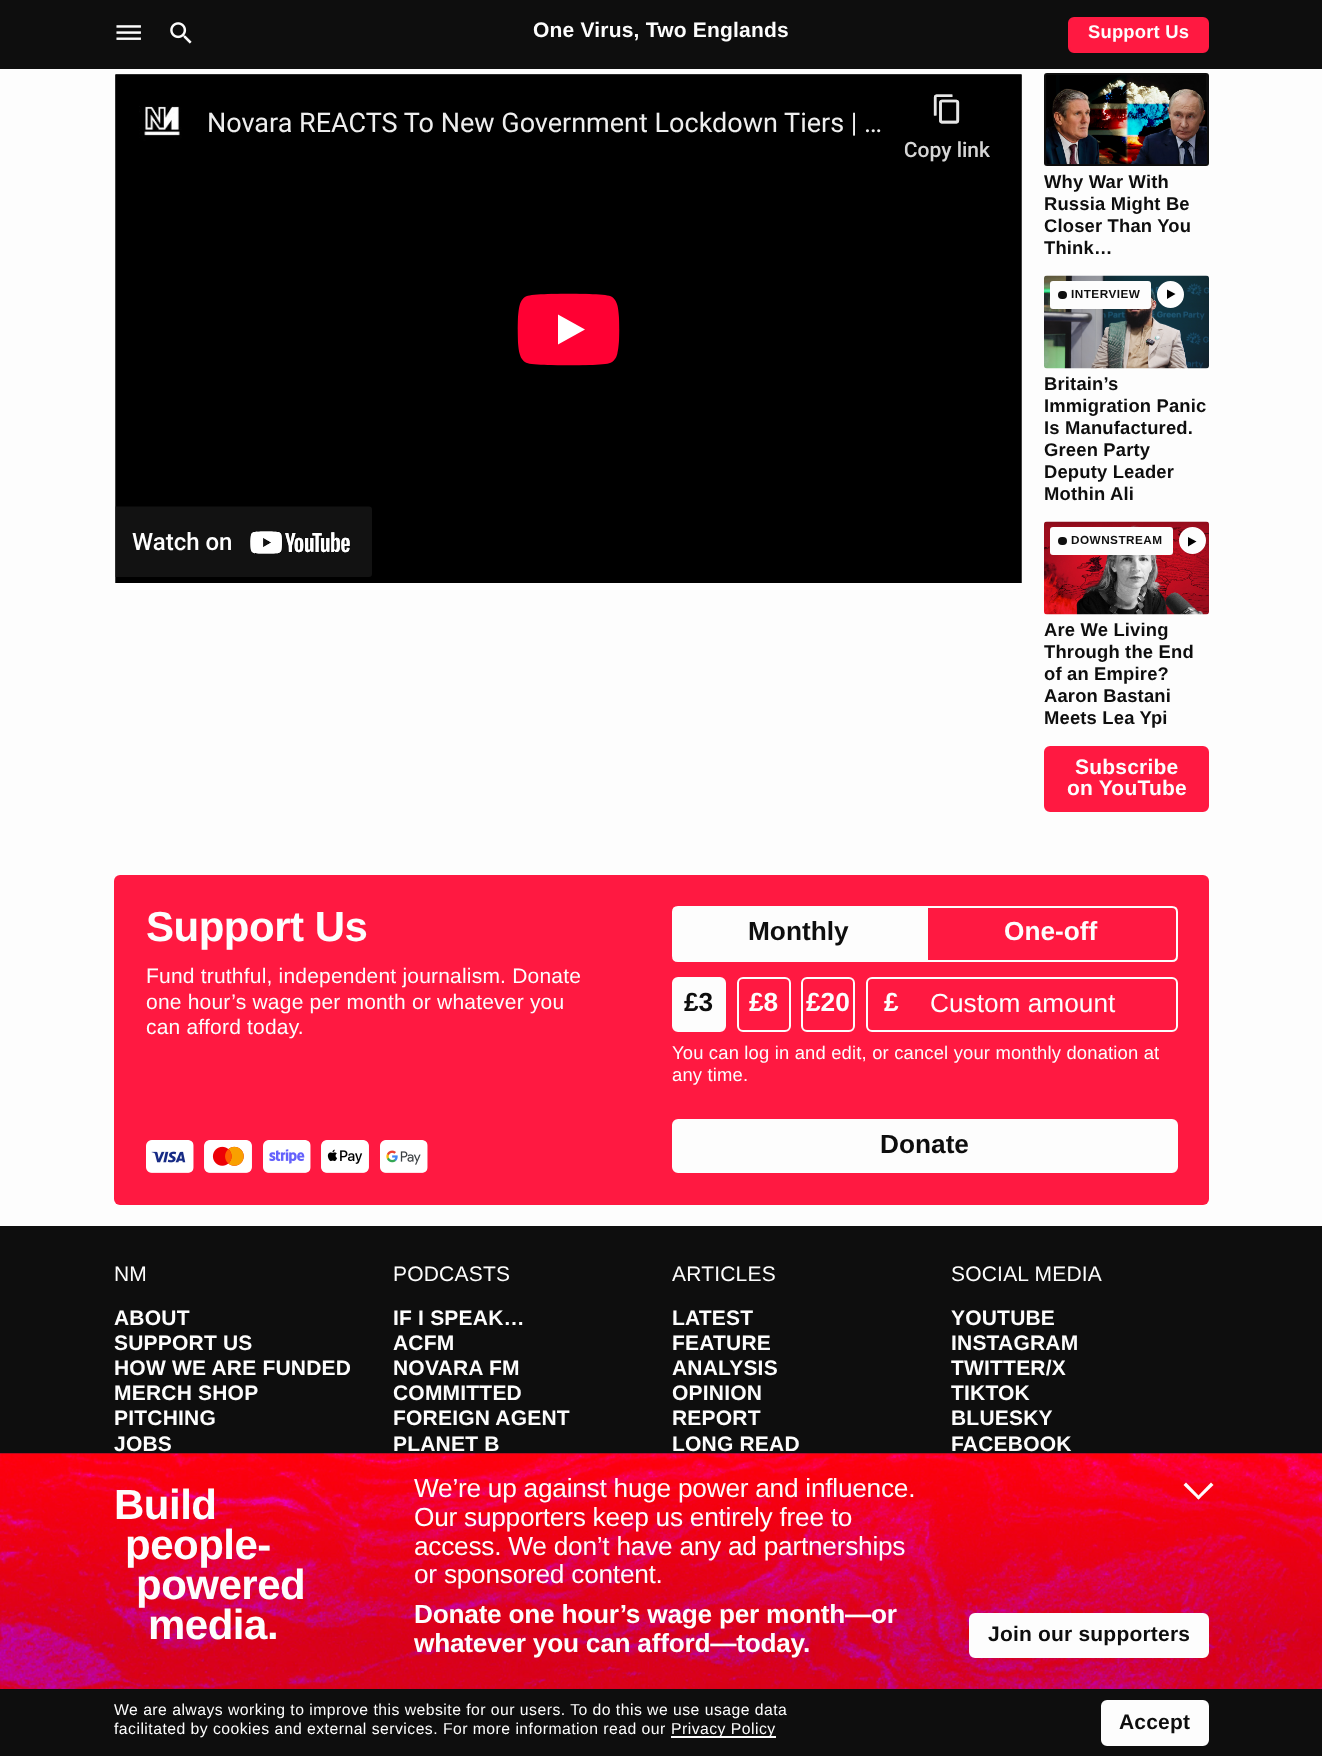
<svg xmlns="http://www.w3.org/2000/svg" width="1322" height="1756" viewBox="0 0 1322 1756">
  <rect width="100%" height="100%" fill="rgb(253,253,253)"/>
  <rect x="0" y="0" width="1322" height="69" fill="rgb(14,14,14)"/>
  <image x="116" y="25" width="25" height="15" href="pic1.png"/>
  <image x="170" y="22" width="22" height="22" href="pic2.png"/>
  <text x="533" y="37" font-family="Liberation Sans" font-size="21" font-weight="bold" letter-spacing="0.2" fill="rgb(253,253,253)">One Virus, Two Englands</text>
  <rect x="1069" y="18" width="139" height="34" rx="5" fill="rgb(255,25,65)" stroke="rgb(255,25,65)" stroke-width="2"/>
  <text x="1088" y="38" font-family="Liberation Sans" font-size="18.4" font-weight="bold" letter-spacing="0.2" fill="rgb(253,253,253)">Support Us</text>
  <image x="115" y="74" width="907" height="509" href="pic3.png"/>
  <image x="1044" y="73" width="165" height="93" href="pic4.png"/>
  <g font-family="Liberation Sans" font-size="18.4" font-weight="bold" letter-spacing="0.18" fill="rgb(14,14,14)">
    <text>
      <tspan x="1044" y="188">Why War With</tspan>
      <tspan x="1044" y="210">Russia Might Be</tspan>
      <tspan x="1044" y="232">Closer Than You</tspan>
      <tspan x="1044" y="254">Think…</tspan>
    </text>
  </g>
  <image x="1044" y="275" width="165" height="94" href="pic5.png"/>
  <rect x="1051" y="282" width="99" height="26" rx="2" fill="rgb(253,253,253)" stroke="rgb(253,253,253)" stroke-width="2"/>
  <rect x="1058" y="291" width="9" height="8" rx="4" fill="rgb(14,14,14)"/>
  <text x="1071" y="298" font-family="Liberation Sans" font-size="11.75" font-weight="bold" letter-spacing="0.47" fill="rgb(14,14,14)">INTERVIEW</text>
  <circle cx="1170.5" cy="294.5" r="12.5" fill="rgb(253,253,253)" stroke="rgb(253,253,253)" stroke-width="2"/>
  <path d="M1167 289.5V299L1175.5 294Z" fill="rgb(0,0,0)"/>
  <g font-family="Liberation Sans" font-size="18.4" font-weight="bold" letter-spacing="0.18" fill="rgb(14,14,14)">
    <text>
      <tspan x="1044" y="390">Britain’s</tspan>
      <tspan x="1044" y="412">Immigration Panic</tspan>
      <tspan x="1044" y="434">Is Manufactured.</tspan>
      <tspan x="1044" y="456">Green Party</tspan>
      <tspan x="1044" y="478">Deputy Leader</tspan>
      <tspan x="1044" y="500">Mothin Ali</tspan>
    </text>
  </g>
  <image x="1044" y="521" width="165" height="94" href="pic6.png"/>
  <rect x="1051" y="528" width="121" height="26" rx="2" fill="rgb(253,253,253)" stroke="rgb(253,253,253)" stroke-width="2"/>
  <rect x="1058" y="537" width="9" height="8" rx="4" fill="rgb(14,14,14)"/>
  <text x="1071" y="544" font-family="Liberation Sans" font-size="11.75" font-weight="bold" letter-spacing="0.47" fill="rgb(14,14,14)">DOWNSTREAM</text>
  <circle cx="1192.5" cy="540.5" r="12.5" fill="rgb(253,253,253)" stroke="rgb(253,253,253)" stroke-width="2"/>
  <path d="M1188 537V546.5L1196.5 541.5Z" fill="rgb(0,0,0)"/>
  <g font-family="Liberation Sans" font-size="18.4" font-weight="bold" letter-spacing="0.18" fill="rgb(14,14,14)">
    <text>
      <tspan x="1044" y="636">Are We Living</tspan>
      <tspan x="1044" y="658">Through the End</tspan>
      <tspan x="1044" y="680">of an Empire?</tspan>
      <tspan x="1044" y="702">Aaron Bastani</tspan>
      <tspan x="1044" y="724">Meets Lea Ypi</tspan>
    </text>
  </g>
  <rect x="1045" y="747" width="163" height="64" rx="5" fill="rgb(255,25,65)" stroke="rgb(255,25,65)" stroke-width="2"/>
  <g font-family="Liberation Sans" font-size="21" font-weight="bold" letter-spacing="0.2" fill="rgb(253,253,253)">
    <text x="1075" y="774">Subscribe</text>
    <text x="1067" y="795">on YouTube</text>
  </g>
  <rect x="114" y="875" width="1095" height="330" rx="6" fill="rgb(255,25,65)"/>
  <text x="146" y="941" font-family="Liberation Sans" font-size="42" font-weight="bold" letter-spacing="-0.5" fill="rgb(253,253,253)">Support Us</text>
  <g font-family="Liberation Sans" font-size="21" letter-spacing="0.2" fill="rgb(253,253,253)">
    <text>
      <tspan x="146" y="983">Fund truthful, independent journalism. Donate</tspan>
      <tspan x="146" y="1009">one hour’s wage per month or whatever you</tspan>
      <tspan x="146" y="1034">can afford today.</tspan>
    </text>
  </g>
  <image x="146" y="1140" width="48" height="33" href="pic7.png"/>
  <image x="204" y="1140" width="48" height="33" href="pic8.png"/>
  <image x="263" y="1140" width="48" height="33" href="pic9.png"/>
  <image x="321" y="1140" width="48" height="33" href="pic10.png"/>
  <image x="380" y="1140" width="48" height="33" href="pic11.png"/>
  <path d="M678 907H925V961H678C675 961 673 959 673 956V912C673 909 675 907 678 907Z" fill="rgb(253,253,253)" stroke="rgb(253,253,253)" stroke-width="2"/>
  <text x="748" y="940" font-family="Liberation Sans" font-size="26.25" font-weight="bold" fill="rgb(14,14,14)">Monthly</text>
  <path d="M927 907H1172C1175 907 1177 909 1177 912V956C1177 959 1175 961 1172 961H927Z" fill="none" stroke="rgb(253,253,253)" stroke-width="2"/>
  <text x="1004" y="940" font-family="Liberation Sans" font-size="26.25" font-weight="bold" fill="rgb(253,253,253)">One-off</text>
  <rect x="673" y="978" width="52" height="53" rx="5" fill="rgb(253,253,253)" stroke="rgb(253,253,253)" stroke-width="2"/>
  <text x="684" y="1011" font-family="Liberation Sans" font-size="26.25" font-weight="bold" fill="rgb(14,14,14)">£3</text>
  <rect x="738" y="978" width="52" height="53" rx="5" fill="none" stroke="rgb(253,253,253)" stroke-width="2"/>
  <text x="749" y="1011" font-family="Liberation Sans" font-size="26.25" font-weight="bold" fill="rgb(253,253,253)">£8</text>
  <rect x="802" y="978" width="52" height="53" rx="5" fill="none" stroke="rgb(253,253,253)" stroke-width="2"/>
  <text x="806" y="1011" font-family="Liberation Sans" font-size="26.25" font-weight="bold" fill="rgb(253,253,253)">£20</text>
  <rect x="867" y="978" width="310" height="53" rx="5" fill="none" stroke="rgb(253,253,253)" stroke-width="2"/>
  <text x="884" y="1011" font-family="Liberation Sans" font-size="26.25" font-weight="bold" letter-spacing="-0.25" fill="rgb(253,253,253)">£</text>
  <text x="930" y="1012" font-family="Liberation Sans" font-size="26.25" fill="rgb(253,253,253)">Custom amount</text>
  <g font-family="Liberation Sans" font-size="18.4" letter-spacing="0.18" fill="rgb(253,253,253)">
    <text>
      <tspan x="672" y="1059">You can log in and edit, or cancel your monthly donation at</tspan>
      <tspan x="672" y="1081">any time.</tspan>
    </text>
  </g>
  <rect x="673" y="1120" width="504" height="52" rx="5" fill="rgb(253,253,253)" stroke="rgb(253,253,253)" stroke-width="2"/>
  <text x="880" y="1153" font-family="Liberation Sans" font-size="26.25" font-weight="bold" fill="rgb(14,14,14)">Donate</text>
  <rect x="0" y="1226" width="1322" height="228" fill="rgb(14,14,14)"/>
  <text x="114" y="1281" font-family="Liberation Sans" font-size="21" letter-spacing="0.2" fill="rgb(253,253,253)">NM</text>
  <g font-family="Liberation Sans" font-size="21" font-weight="bold" letter-spacing="0.2" fill="rgb(253,253,253)">
    <text>
      <tspan x="114" y="1325">ABOUT</tspan>
      <tspan x="114" y="1350">SUPPORT US</tspan>
      <tspan x="114" y="1375">HOW WE ARE FUNDED</tspan>
      <tspan x="114" y="1400">MERCH SHOP</tspan>
      <tspan x="114" y="1425">PITCHING</tspan>
      <tspan x="114" y="1451">JOBS</tspan>
    </text>
  </g>
  <text x="393" y="1281" font-family="Liberation Sans" font-size="21" letter-spacing="0.2" fill="rgb(253,253,253)">PODCASTS</text>
  <g font-family="Liberation Sans" font-size="21" font-weight="bold" letter-spacing="0.2" fill="rgb(253,253,253)">
    <text>
      <tspan x="393" y="1325">IF I SPEAK…</tspan>
      <tspan x="393" y="1350">ACFM</tspan>
      <tspan x="393" y="1375">NOVARA FM</tspan>
      <tspan x="393" y="1400">COMMITTED</tspan>
      <tspan x="393" y="1425">FOREIGN AGENT</tspan>
      <tspan x="393" y="1451">PLANET B</tspan>
    </text>
  </g>
  <text x="672" y="1281" font-family="Liberation Sans" font-size="21" letter-spacing="0.2" fill="rgb(253,253,253)">ARTICLES</text>
  <g font-family="Liberation Sans" font-size="21" font-weight="bold" letter-spacing="0.2" fill="rgb(253,253,253)">
    <text>
      <tspan x="672" y="1325">LATEST</tspan>
      <tspan x="672" y="1350">FEATURE</tspan>
      <tspan x="672" y="1375">ANALYSIS</tspan>
      <tspan x="672" y="1400">OPINION</tspan>
      <tspan x="672" y="1425">REPORT</tspan>
      <tspan x="672" y="1451">LONG READ</tspan>
    </text>
  </g>
  <text x="951" y="1281" font-family="Liberation Sans" font-size="21" letter-spacing="0.2" fill="rgb(253,253,253)">SOCIAL MEDIA</text>
  <g font-family="Liberation Sans" font-size="21" font-weight="bold" letter-spacing="0.2" fill="rgb(253,253,253)">
    <text>
      <tspan x="951" y="1325">YOUTUBE</tspan>
      <tspan x="951" y="1350">INSTAGRAM</tspan>
      <tspan x="951" y="1375">TWITTER/X</tspan>
      <tspan x="951" y="1400">TIKTOK</tspan>
      <tspan x="951" y="1425">BLUESKY</tspan>
      <tspan x="951" y="1451">FACEBOOK</tspan>
    </text>
  </g>
  <image x="0" y="1453" width="1322" height="236" href="pic12.png"/>
  <g font-family="Liberation Sans" font-size="42" font-weight="bold" letter-spacing="-0.5" fill="rgb(253,253,253)">
    <text x="114" y="1519">Build</text>
    <text x="125" y="1559">people-</text>
    <text x="136" y="1599">powered</text>
    <text x="148" y="1639">media.</text>
  </g>
  <g font-family="Liberation Sans" font-size="26.25" letter-spacing="-0.25" fill="rgb(253,253,253)">
    <text>
      <tspan x="414" y="1497">We’re up against huge power and influence.</tspan>
      <tspan x="414" y="1526">Our supporters keep us entirely free to</tspan>
      <tspan x="414" y="1555">access. We don’t have any ad partnerships</tspan>
      <tspan x="414" y="1583">or sponsored content.</tspan>
    </text>
  </g>
  <g font-family="Liberation Sans" font-size="26.25" font-weight="bold" letter-spacing="-0.25" fill="rgb(253,253,253)">
    <text>
      <tspan x="414" y="1623">Donate one hour’s wage per month—or</tspan>
      <tspan x="414" y="1652">whatever you can afford—today.</tspan>
    </text>
  </g>
  <path d="M1211 1482.5L1213.5 1485L1198.5 1499.5L1196.5 1497.5Z" fill="rgb(253,253,253)"/>
  <path d="M1186 1482.5L1200.5 1497.5L1198.5 1499.5L1183.5 1485Z" fill="rgb(253,253,253)"/>
  <rect x="970" y="1614" width="238" height="43" rx="5" fill="rgb(253,253,253)" stroke="rgb(253,253,253)" stroke-width="2"/>
  <text x="988" y="1641" font-family="Liberation Sans" font-size="21" font-weight="bold" letter-spacing="0.2" fill="rgb(14,14,14)">Join our supporters</text>
  <rect x="0" y="1689" width="1322" height="67" fill="rgb(14,14,14)"/>
  <g font-family="Liberation Sans" font-size="15.75" letter-spacing="0.47" fill="rgb(253,253,253)">
    <text>
      <tspan x="114" y="1715">We are always working to improve this website for our users. To do this we use usage data</tspan>
      <tspan x="114" y="1734">facilitated by cookies and external services. For more information read our</tspan>
    </text>
  </g>
  <rect x="671" y="1736" width="105" height="2" fill="rgb(253,253,253)"/>
  <text x="671" y="1734" font-family="Liberation Sans" font-size="15.75" letter-spacing="0.47" fill="rgb(253,253,253)">Privacy Policy</text>
  <rect x="1102" y="1701" width="106" height="44" rx="5" fill="rgb(253,253,253)" stroke="rgb(253,253,253)" stroke-width="2"/>
  <text x="1119" y="1729" font-family="Liberation Sans" font-size="21" font-weight="bold" letter-spacing="0.2" fill="rgb(14,14,14)">Accept</text>
</svg>
